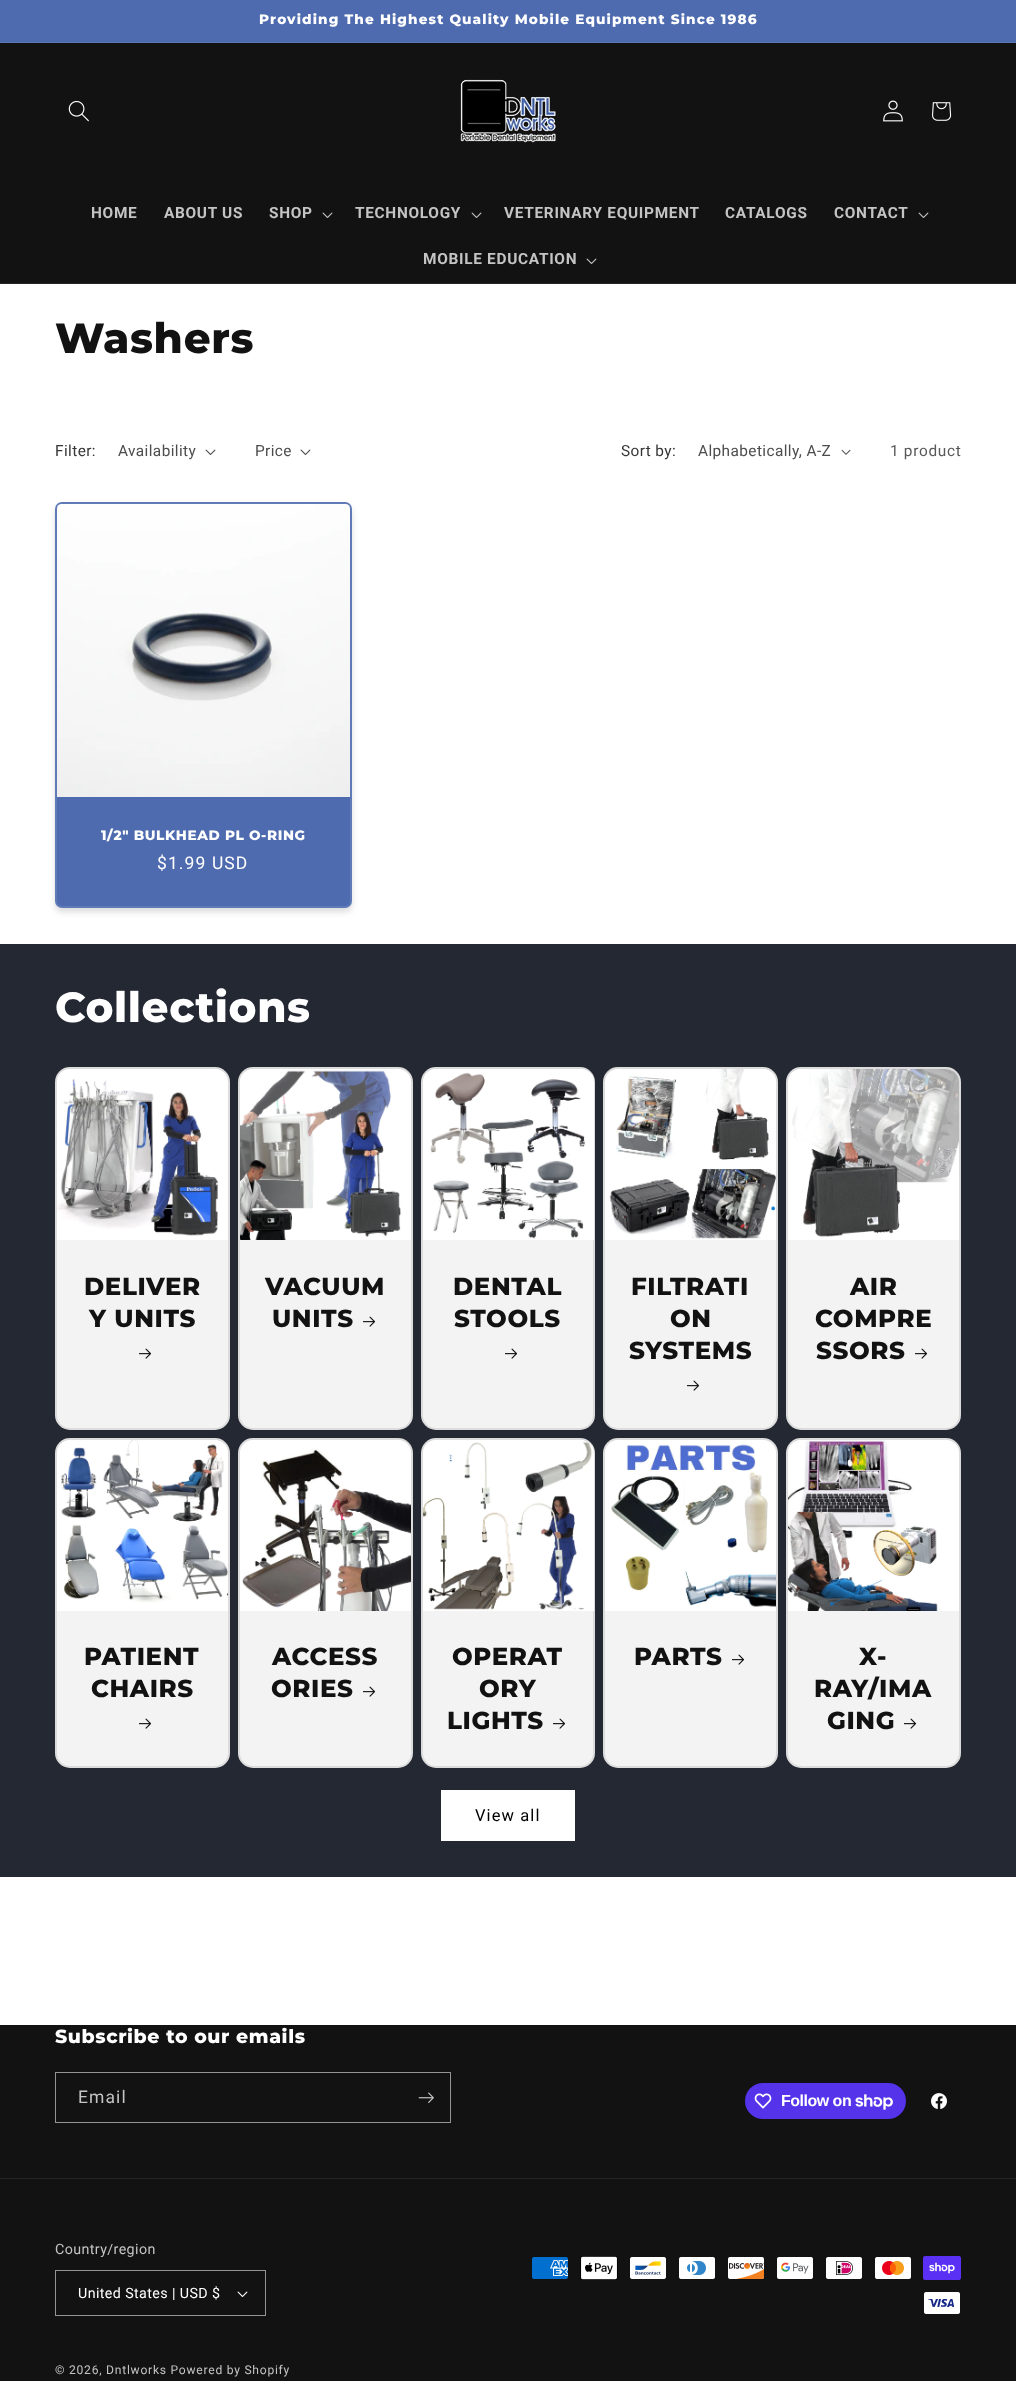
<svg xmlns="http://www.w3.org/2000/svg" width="1016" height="2381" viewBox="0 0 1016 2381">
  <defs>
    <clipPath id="clip1"><path d="M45 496H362V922H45ZM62 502H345C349 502 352 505 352 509V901C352 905 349 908 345 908H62C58 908 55 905 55 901V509C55 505 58 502 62 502Z" clip-rule="evenodd"/></clipPath>
  </defs>
  <rect width="100%" height="100%" fill="rgb(255,255,255)"/>
  <rect x="0" y="0" width="1016" height="42" fill="rgb(78,107,175)"/>
  <rect x="0" y="42" width="1016" height="1" fill="rgb(92,119,181)"/>
  <text x="259" y="24" font-family="Montserrat" font-size="13.65" font-weight="800" letter-spacing="1.1" fill="rgb(255,255,255)">Providing The Highest Quality Mobile Equipment Since 1986</text>
  <rect x="0" y="43" width="1016" height="240" fill="rgb(18,18,18)"/>
  <rect x="0" y="283" width="1016" height="1" fill="rgb(37,37,37)"/>
  <image x="68" y="100" width="21" height="22" href="pic1.png"/>
  <image x="460" y="79" width="96" height="64" href="pic2.png"/>
  <image x="883" y="100" width="20" height="22" href="pic3.png"/>
  <image x="932" y="102" width="20" height="19" href="pic4.png"/>
  <g font-family="Roboto" font-size="15.4" font-weight="bold" letter-spacing="0.7" fill="rgb(196,196,196)">
    <text x="91" y="218">HOME</text>
    <text x="164" y="218">ABOUT US</text>
    <text x="269" y="218">SHOP</text>
  </g>
  <image x="322" y="212" width="11" height="6" href="pic5.png"/>
  <text x="355" y="218" font-family="Roboto" font-size="15.4" font-weight="bold" letter-spacing="0.7" fill="rgb(196,196,196)">TECHNOLOGY</text>
  <image x="471" y="212" width="11" height="6" href="pic5.png"/>
  <g font-family="Roboto" font-size="15.4" font-weight="bold" letter-spacing="0.7" fill="rgb(196,196,196)">
    <text x="504" y="218">VETERINARY EQUIPMENT</text>
    <text x="725" y="218">CATALOGS</text>
    <text x="834" y="218">CONTACT</text>
  </g>
  <image x="918" y="212" width="11" height="6" href="pic5.png"/>
  <text x="423" y="264" font-family="Roboto" font-size="15.4" font-weight="bold" letter-spacing="0.7" fill="rgb(196,196,196)">MOBILE EDUCATION</text>
  <image x="586" y="258" width="11" height="6" href="pic5.png"/>
  <text x="55" y="353" font-family="Montserrat" font-size="42" font-weight="800" letter-spacing="0.6" fill="rgb(18,18,18)">Washers</text>
  <text x="55" y="456" font-family="Roboto" font-size="15.4" letter-spacing="0.4" fill="rgb(54,54,54)">Filter:</text>
  <text x="118" y="456" font-family="Roboto" font-size="15.4" letter-spacing="0.4" fill="rgb(77,77,77)">Availability</text>
  <image x="205" y="449" width="11" height="6" href="pic6.png"/>
  <text x="255" y="456" font-family="Roboto" font-size="15.4" letter-spacing="0.4" fill="rgb(77,77,77)">Price</text>
  <image x="300" y="449" width="11" height="6" href="pic6.png"/>
  <text x="621" y="456" font-family="Roboto" font-size="15.4" letter-spacing="0.4" fill="rgb(54,54,54)">Sort by:</text>
  <text x="698" y="456" font-family="Roboto" font-size="15.4" letter-spacing="0.4" fill="rgb(77,77,77)">Alphabetically, A-Z</text>
  <image x="841" y="449" width="10" height="6" href="pic7.png"/>
  <text x="890" y="456" font-family="Roboto" font-size="15.4" letter-spacing="0.7" fill="rgb(89,89,89)">1 product</text>
  <rect x="55" y="502" width="297" height="406" rx="7" fill="rgb(78,107,175)"/>
  <rect x="56" y="503" width="295" height="404" rx="6" fill="none" stroke="rgba(255,255,255,0.1)" stroke-width="2"/>
  <g clip-path="url(#clip1)">
    <rect x="55" y="506" width="297" height="406" rx="7" fill="rgba(18,18,18,0.15)" filter="blur(3px)"/>
  </g>
  <image x="57" y="504" width="293" height="293" href="pic8.png"/>
  <text x="101" y="840" font-family="Montserrat" font-size="13.65" font-weight="800" letter-spacing="0.6" fill="rgb(255,255,255)">1/2" BULKHEAD PL O-RING</text>
  <text x="157" y="869" font-family="Roboto" font-size="17.5" letter-spacing="1.1" fill="rgb(255,255,255)">$1.99 USD</text>
  <rect x="0" y="944" width="1016" height="933" fill="rgb(36,40,51)"/>
  <text x="55" y="1022" font-family="Montserrat" font-size="42" font-weight="800" letter-spacing="0.6" fill="rgb(255,255,255)">Collections</text>
  <rect x="55" y="1067" width="175" height="363" rx="15" fill="rgb(243,243,243)"/>
  <rect x="56" y="1068" width="173" height="361" rx="14" fill="none" stroke="rgba(18,18,18,0.1)" stroke-width="2"/>
  <image x="57" y="1069" width="171" height="171" href="pic9.png"/>
  <g font-family="Montserrat" font-size="24.5" font-weight="800" letter-spacing="0.6" fill="rgb(18,18,18)">
    <text x="84" y="1295">DELIVER</text>
    <text x="89" y="1327">Y UNITS</text>
  </g>
  <image x="139" y="1348" width="13" height="11" href="pic10.png"/>
  <rect x="238" y="1067" width="175" height="363" rx="15" fill="rgb(243,243,243)"/>
  <rect x="239" y="1068" width="173" height="361" rx="14" fill="none" stroke="rgba(18,18,18,0.1)" stroke-width="2"/>
  <image x="240" y="1069" width="171" height="171" href="pic11.png"/>
  <g font-family="Montserrat" font-size="24.5" font-weight="800" letter-spacing="0.6" fill="rgb(18,18,18)">
    <text x="265" y="1295">VACUUM</text>
    <text x="272" y="1327">UNITS</text>
  </g>
  <image x="363" y="1316" width="13" height="11" href="pic10.png"/>
  <rect x="421" y="1067" width="174" height="363" rx="15" fill="rgb(243,243,243)"/>
  <rect x="422" y="1068" width="172" height="361" rx="14" fill="none" stroke="rgba(18,18,18,0.1)" stroke-width="2"/>
  <image x="423" y="1069" width="171" height="171" href="pic12.png"/>
  <g font-family="Montserrat" font-size="24.5" font-weight="800" letter-spacing="0.6" fill="rgb(18,18,18)">
    <text x="453" y="1295">DENTAL</text>
    <text x="454" y="1327">STOOLS</text>
  </g>
  <image x="505" y="1348" width="13" height="11" href="pic10.png"/>
  <rect x="603" y="1067" width="175" height="363" rx="15" fill="rgb(243,243,243)"/>
  <rect x="604" y="1068" width="173" height="361" rx="14" fill="none" stroke="rgba(18,18,18,0.1)" stroke-width="2"/>
  <image x="605" y="1069" width="171" height="171" href="pic13.png"/>
  <g font-family="Montserrat" font-size="24.5" font-weight="800" letter-spacing="0.6" fill="rgb(18,18,18)">
    <text x="631" y="1295">FILTRATI</text>
    <text x="670" y="1327">ON</text>
    <text x="629" y="1359">SYSTEMS</text>
  </g>
  <image x="687" y="1380" width="13" height="11" href="pic10.png"/>
  <rect x="786" y="1067" width="175" height="363" rx="15" fill="rgb(243,243,243)"/>
  <rect x="787" y="1068" width="173" height="361" rx="14" fill="none" stroke="rgba(18,18,18,0.1)" stroke-width="2"/>
  <image x="788" y="1069" width="171" height="171" href="pic14.png"/>
  <g font-family="Montserrat" font-size="24.5" font-weight="800" letter-spacing="0.6" fill="rgb(18,18,18)">
    <text x="850" y="1295">AIR</text>
    <text x="815" y="1327">COMPRE</text>
    <text x="816" y="1359">SSORS</text>
  </g>
  <image x="915" y="1348" width="13" height="11" href="pic10.png"/>
  <rect x="55" y="1438" width="175" height="330" rx="15" fill="rgb(243,243,243)"/>
  <rect x="56" y="1439" width="173" height="328" rx="14" fill="none" stroke="rgba(18,18,18,0.1)" stroke-width="2"/>
  <image x="57" y="1440" width="171" height="171" href="pic15.png"/>
  <g font-family="Montserrat" font-size="24.5" font-weight="800" letter-spacing="0.6" fill="rgb(18,18,18)">
    <text x="84" y="1665">PATIENT</text>
    <text x="91" y="1697">CHAIRS</text>
  </g>
  <image x="139" y="1718" width="13" height="11" href="pic10.png"/>
  <rect x="238" y="1438" width="175" height="330" rx="15" fill="rgb(243,243,243)"/>
  <rect x="239" y="1439" width="173" height="328" rx="14" fill="none" stroke="rgba(18,18,18,0.1)" stroke-width="2"/>
  <image x="240" y="1440" width="171" height="171" href="pic16.png"/>
  <g font-family="Montserrat" font-size="24.5" font-weight="800" letter-spacing="0.6" fill="rgb(18,18,18)">
    <text x="272" y="1665">ACCESS</text>
    <text x="271" y="1697">ORIES</text>
  </g>
  <image x="363" y="1686" width="13" height="11" href="pic10.png"/>
  <rect x="421" y="1438" width="174" height="330" rx="15" fill="rgb(243,243,243)"/>
  <rect x="422" y="1439" width="172" height="328" rx="14" fill="none" stroke="rgba(18,18,18,0.1)" stroke-width="2"/>
  <image x="423" y="1440" width="171" height="171" href="pic17.png"/>
  <g font-family="Montserrat" font-size="24.5" font-weight="800" letter-spacing="0.6" fill="rgb(18,18,18)">
    <text x="452" y="1665">OPERAT</text>
    <text x="479" y="1697">ORY</text>
    <text x="447" y="1729">LIGHTS</text>
  </g>
  <image x="553" y="1718" width="13" height="11" href="pic10.png"/>
  <rect x="603" y="1438" width="175" height="330" rx="15" fill="rgb(243,243,243)"/>
  <rect x="604" y="1439" width="173" height="328" rx="14" fill="none" stroke="rgba(18,18,18,0.1)" stroke-width="2"/>
  <image x="605" y="1440" width="171" height="171" href="pic18.png"/>
  <text x="634" y="1665" font-family="Montserrat" font-size="24.5" font-weight="800" letter-spacing="0.6" fill="rgb(18,18,18)">PARTS</text>
  <image x="732" y="1654" width="13" height="11" href="pic10.png"/>
  <rect x="786" y="1438" width="175" height="330" rx="15" fill="rgb(243,243,243)"/>
  <rect x="787" y="1439" width="173" height="328" rx="14" fill="none" stroke="rgba(18,18,18,0.1)" stroke-width="2"/>
  <image x="788" y="1440" width="171" height="171" href="pic19.png"/>
  <g font-family="Montserrat" font-size="24.5" font-weight="800" letter-spacing="0.6" fill="rgb(18,18,18)">
    <text x="859" y="1665">X-</text>
    <text x="814" y="1697">RAY/IMA</text>
    <text x="827" y="1729">GING</text>
  </g>
  <image x="904" y="1718" width="13" height="11" href="pic10.png"/>
  <rect x="441" y="1790" width="134" height="51" fill="rgb(255,255,255)"/>
  <text x="475" y="1821" font-family="Roboto" font-size="16.5" letter-spacing="1.1" fill="rgb(0,0,0)">View all</text>
  <rect x="0" y="2025" width="1016" height="356" fill="rgb(18,18,18)"/>
  <text x="55" y="2043" font-family="Montserrat" font-size="18.9" font-weight="800" letter-spacing="0.6" fill="rgb(255,255,255)">Subscribe to our emails</text>
  <rect x="55.5" y="2072.5" width="395" height="50" fill="none" stroke="rgb(148,148,148)"/>
  <text x="78" y="2103" font-family="Roboto" font-size="17.5" letter-spacing="1.1" fill="rgb(196,196,196)">Email</text>
  <image x="418" y="2092" width="16" height="11" href="pic20.png"/>
  <rect x="745" y="2083" width="161" height="36" rx="18" fill="rgb(84,51,235)"/>
  <image x="754" y="2093" width="18" height="16" href="pic21.png"/>
  <text x="781" y="2106" font-family="Liberation Sans" font-size="16" font-weight="bold" letter-spacing="-0.5" fill="rgb(255,255,255)">Follow on</text>
  <image x="855" y="2094" width="38" height="16" href="pic22.png"/>
  <image x="931" y="2093" width="16" height="16" href="pic23.png"/>
  <rect x="0" y="2178" width="1016" height="1" fill="rgb(37,37,37)"/>
  <text x="55" y="2254" font-family="Roboto" font-size="14.25" letter-spacing="0.4" fill="rgb(196,196,196)">Country/region</text>
  <image x="237" y="2291" width="11" height="6" href="pic24.png"/>
  <rect x="55.5" y="2270.5" width="210" height="45" fill="none" stroke="rgb(148,148,148)"/>
  <text x="78" y="2298" font-family="Roboto" font-size="14.25" letter-spacing="0.4" fill="rgb(255,255,255)">United States | USD $</text>
  <image x="532" y="2257" width="36" height="22" href="pic25.png"/>
  <image x="580" y="2256" width="38" height="24" href="pic26.png"/>
  <image x="630" y="2257" width="36" height="22" href="pic27.png"/>
  <image x="679" y="2257" width="36" height="22" href="pic28.png"/>
  <image x="728" y="2257" width="36" height="22" href="pic29.png"/>
  <image x="777" y="2257" width="36" height="22" href="pic30.png"/>
  <image x="826" y="2257" width="36" height="22" href="pic31.png"/>
  <image x="875" y="2257" width="36" height="22" href="pic32.png"/>
  <image x="923" y="2256" width="38" height="24" href="pic33.png"/>
  <image x="924" y="2292" width="36" height="22" href="pic34.png"/>
  <text x="55" y="2374" font-family="Roboto" font-size="12.1" letter-spacing="0.75" fill="rgb(196,196,196)">© 2026, Dntlworks Powered by Shopify</text>
</svg>
